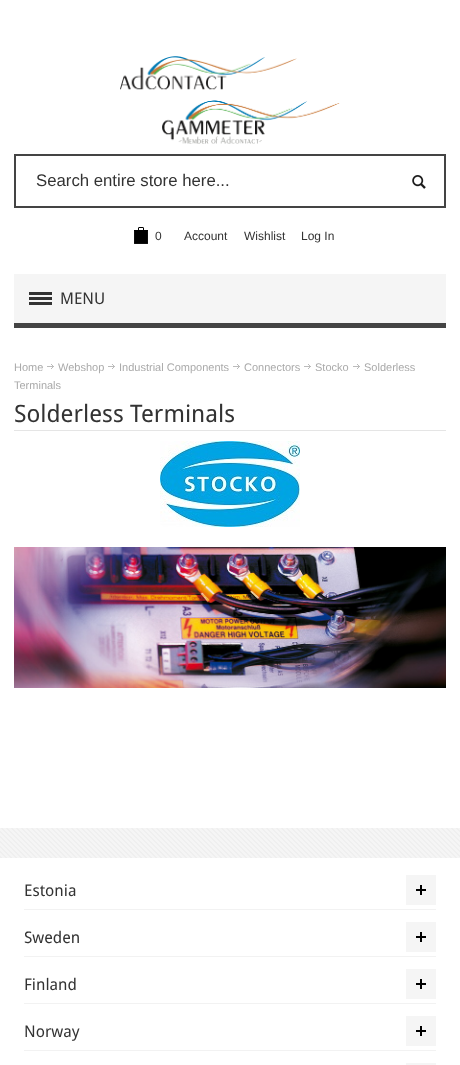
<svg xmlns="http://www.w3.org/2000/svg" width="460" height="1065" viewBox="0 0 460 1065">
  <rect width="100%" height="100%" fill="rgb(255,255,255)"/>
  <image x="120" y="56" width="220" height="88" href="pic1.png"/>
  <rect x="15" y="155" width="430" height="52" fill="none" stroke="rgb(68,68,68)" stroke-width="2"/>
  <text x="36" y="186" font-family="Liberation Sans" font-size="16.75" fill="rgb(51,51,51)">Search entire store here...</text>
  <image x="412" y="175" width="14" height="14" href="pic2.png"/>
  <image x="134" y="227" width="14" height="17" href="pic3.png"/>
  <g font-family="Liberation Sans" font-size="12" fill="rgb(51,51,51)">
    <text x="155" y="240">0</text>
    <text x="184" y="240">Account</text>
    <text x="244" y="240">Wishlist</text>
    <text x="301" y="240">Log In</text>
  </g>
  <rect x="14" y="274" width="432" height="49" fill="rgb(245,245,245)"/>
  <rect x="29" y="292" width="23" height="3" fill="rgb(51,51,51)"/>
  <rect x="29" y="297" width="23" height="3" fill="rgb(51,51,51)"/>
  <rect x="29" y="302" width="23" height="3" fill="rgb(51,51,51)"/>
  <text x="60" y="304" font-family="Droid Sans" font-size="16" fill="rgb(51,51,51)">MENU</text>
  <rect x="14" y="323" width="432" height="5" fill="rgb(68,68,68)"/>
  <text x="14" y="371" font-family="Liberation Sans" font-size="11" fill="rgb(170,170,170)">Home</text>
  <image x="47" y="364" width="7" height="5" href="pic4.png"/>
  <g font-family="Liberation Sans" font-size="11" fill="rgb(170,170,170)">
    <text x="364" y="371">Solderless</text>
    <text x="14" y="389">Terminals</text>
    <text x="58" y="371">Webshop</text>
  </g>
  <image x="108" y="364" width="7" height="5" href="pic4.png"/>
  <text x="119" y="371" font-family="Liberation Sans" font-size="11" fill="rgb(170,170,170)">Industrial Components</text>
  <image x="233" y="364" width="7" height="5" href="pic4.png"/>
  <text x="244" y="371" font-family="Liberation Sans" font-size="11" fill="rgb(170,170,170)">Connectors</text>
  <image x="304" y="364" width="7" height="5" href="pic4.png"/>
  <text x="315" y="371" font-family="Liberation Sans" font-size="11" fill="rgb(170,170,170)">Stocko</text>
  <image x="353" y="364" width="7" height="5" href="pic4.png"/>
  <rect x="14" y="430" width="432" height="1" fill="rgb(229,229,229)"/>
  <text x="14" y="422" font-family="Droid Sans" font-size="24" fill="rgb(51,51,51)">Solderless Terminals</text>
  <image x="160" y="441" width="140" height="86" href="pic5.png"/>
  <image x="14" y="547" width="432" height="141" href="pic6.png"/>
  <rect x="0" y="828" width="460" height="30" fill="rgb(245,245,245)"/>
  <image x="0" y="828" width="460" height="30" href="pic7.png"/>
  <rect x="24" y="909" width="412" height="1" fill="rgb(242,242,242)"/>
  <text x="24" y="896" font-family="Droid Sans" font-size="16" fill="rgb(51,51,51)">Estonia</text>
  <rect x="406" y="875" width="30" height="30" fill="rgb(245,245,245)"/>
  <image x="416" y="885" width="10" height="10" href="pic8.png"/>
  <rect x="24" y="956" width="412" height="1" fill="rgb(242,242,242)"/>
  <text x="24" y="943" font-family="Droid Sans" font-size="16" fill="rgb(51,51,51)">Sweden</text>
  <rect x="406" y="922" width="30" height="30" fill="rgb(245,245,245)"/>
  <image x="416" y="932" width="10" height="10" href="pic8.png"/>
  <rect x="24" y="1003" width="412" height="1" fill="rgb(242,242,242)"/>
  <text x="24" y="990" font-family="Droid Sans" font-size="16" fill="rgb(51,51,51)">Finland</text>
  <rect x="406" y="969" width="30" height="30" fill="rgb(245,245,245)"/>
  <image x="416" y="979" width="10" height="10" href="pic8.png"/>
  <rect x="24" y="1050" width="412" height="1" fill="rgb(242,242,242)"/>
  <text x="24" y="1037" font-family="Droid Sans" font-size="16" fill="rgb(51,51,51)">Norway</text>
  <rect x="406" y="1016" width="30" height="30" fill="rgb(245,245,245)"/>
  <image x="416" y="1026" width="10" height="10" href="pic8.png"/>
  <rect x="406" y="1063" width="30" height="2" fill="rgb(245,245,245)"/>
</svg>
